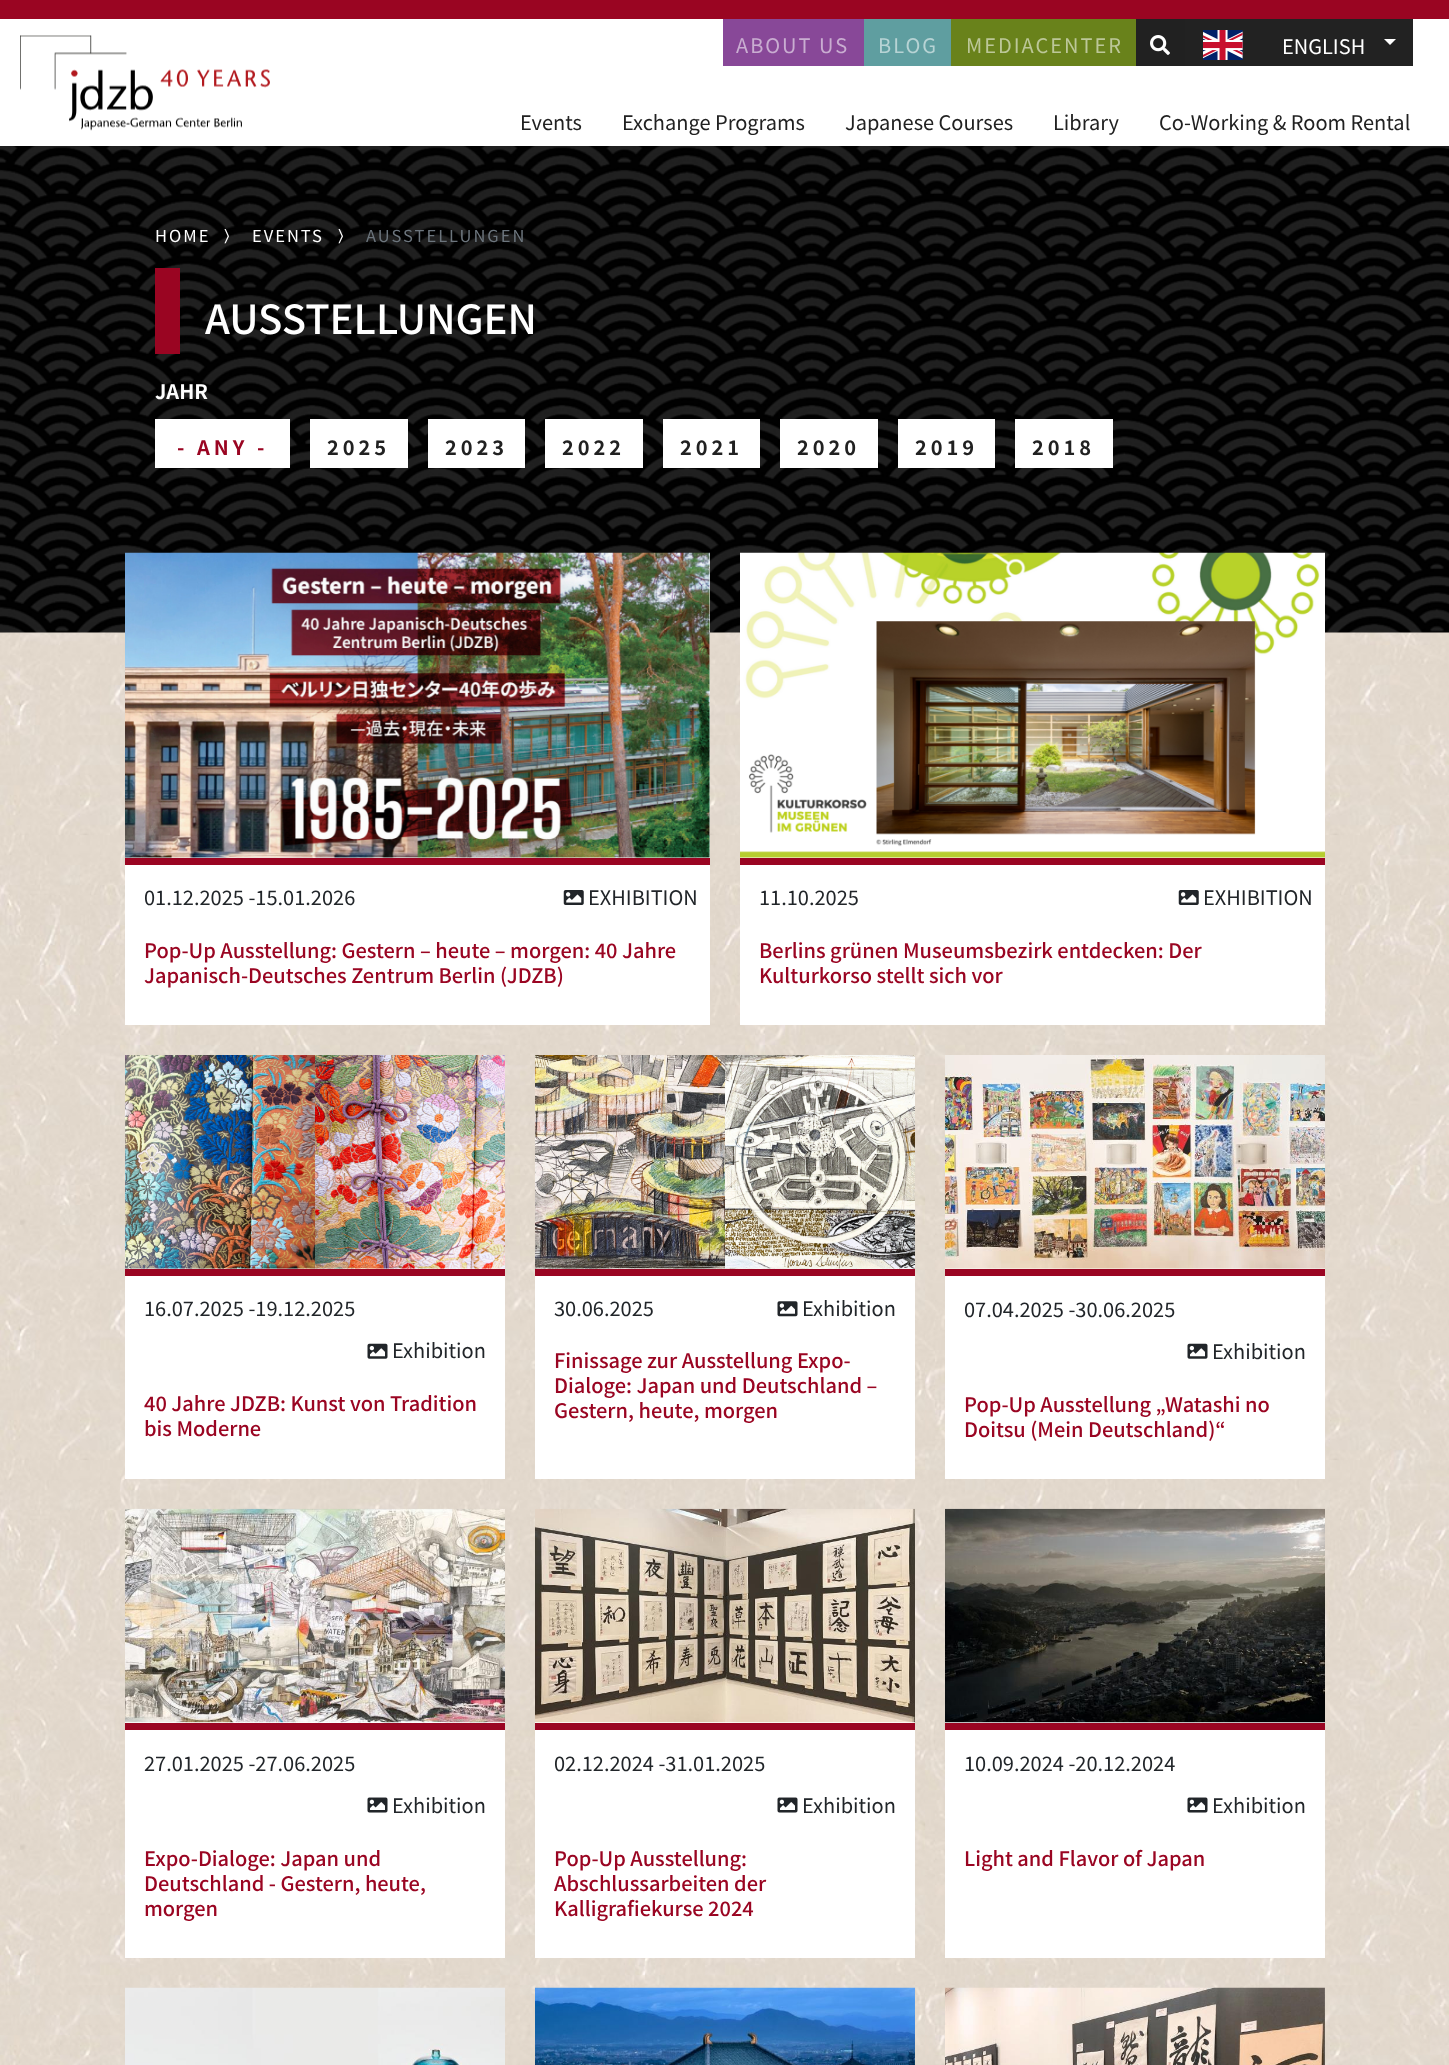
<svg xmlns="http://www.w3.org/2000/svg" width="1449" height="2065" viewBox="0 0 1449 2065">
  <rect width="100%" height="100%" fill="rgb(255,255,255)"/>
  <image x="0" y="632" width="1449" height="1433" href="pic1.png"/>
  <rect x="0" y="0" width="1449" height="19" fill="rgb(154,5,34)"/>
  <image x="20" y="35" width="250" height="96" href="pic2.png"/>
  <rect x="723" y="19" width="141" height="47" fill="rgb(136,72,152)"/>
  <text x="736" y="53" font-family="Noto Sans JP" font-size="20" letter-spacing="2" fill="rgb(201,173,209)">ABOUT US</text>
  <rect x="864" y="19" width="87" height="47" fill="rgb(95,158,160)"/>
  <text x="878" y="53" font-family="Noto Sans JP" font-size="20" letter-spacing="2" fill="rgb(183,211,212)">BLOG</text>
  <rect x="951" y="19" width="185" height="47" fill="rgb(105,130,27)"/>
  <text x="966" y="53" font-family="Noto Sans JP" font-size="20" letter-spacing="2" fill="rgb(188,199,152)">MEDIACENTER</text>
  <rect x="1136" y="19" width="49" height="47" fill="rgb(33,33,33)"/>
  <image x="1150" y="35" width="20" height="20" href="pic3.png"/>
  <rect x="1185" y="19" width="228" height="47" fill="rgb(34,34,34)"/>
  <image x="1203" y="30" width="40" height="30" href="pic4.png"/>
  <text x="1282" y="54" font-family="Noto Sans JP" font-size="20" fill="rgb(255,255,255)">ENGLISH</text>
  <path d="M1384 39H1396L1390 45Z" fill="rgb(255,255,255)"/>
  <g font-family="Noto Sans JP" font-size="20" fill="rgb(33,33,33)">
    <text x="520" y="130">Events</text>
    <text x="622" y="130">Exchange Programs</text>
    <text x="845" y="130">Japanese Courses</text>
    <text x="1053" y="130">Library</text>
    <text x="1159" y="130">Co-Working &amp; Room Rental</text>
  </g>
  <image x="0" y="146" width="1449" height="487" href="pic5.png"/>
  <g font-family="Noto Sans JP" font-size="16.5" letter-spacing="2" fill="rgb(255,255,255)">
    <text x="155" y="242">HOME</text>
    <text x="224" y="241">〉</text>
    <text x="252" y="242">EVENTS</text>
    <text x="338" y="241">〉</text>
  </g>
  <text x="366" y="242" font-family="Noto Sans JP" font-size="16.5" letter-spacing="2" fill="rgb(108,117,125)">AUSSTELLUNGEN</text>
  <rect x="155" y="268" width="25" height="86" fill="rgb(154,5,34)"/>
  <text x="205" y="334" font-family="Noto Sans JP" font-size="40" font-weight="500" fill="rgb(255,255,255)">AUSSTELLUNGEN</text>
  <text x="155" y="399" font-family="Noto Sans JP" font-size="20" font-weight="bold" fill="rgb(255,255,255)">JAHR</text>
  <rect x="155" y="419" width="135" height="49" fill="rgb(255,255,255)"/>
  <text x="177" y="455" font-family="Noto Sans JP" font-size="20" font-weight="bold" letter-spacing="4" fill="rgb(154,5,34)">- ANY -</text>
  <rect x="310" y="419" width="98" height="49" fill="rgb(255,255,255)"/>
  <text x="327" y="455" font-family="Noto Sans JP" font-size="20" font-weight="bold" letter-spacing="4" fill="rgb(33,33,33)">2025</text>
  <rect x="428" y="419" width="97" height="49" fill="rgb(255,255,255)"/>
  <text x="445" y="455" font-family="Noto Sans JP" font-size="20" font-weight="bold" letter-spacing="4" fill="rgb(33,33,33)">2023</text>
  <rect x="545" y="419" width="98" height="49" fill="rgb(255,255,255)"/>
  <text x="562" y="455" font-family="Noto Sans JP" font-size="20" font-weight="bold" letter-spacing="4" fill="rgb(33,33,33)">2022</text>
  <rect x="663" y="419" width="97" height="49" fill="rgb(255,255,255)"/>
  <text x="680" y="455" font-family="Noto Sans JP" font-size="20" font-weight="bold" letter-spacing="4" fill="rgb(33,33,33)">2021</text>
  <rect x="780" y="419" width="98" height="49" fill="rgb(255,255,255)"/>
  <text x="797" y="455" font-family="Noto Sans JP" font-size="20" font-weight="bold" letter-spacing="4" fill="rgb(33,33,33)">2020</text>
  <rect x="898" y="419" width="97" height="49" fill="rgb(255,255,255)"/>
  <text x="915" y="455" font-family="Noto Sans JP" font-size="20" font-weight="bold" letter-spacing="4" fill="rgb(33,33,33)">2019</text>
  <rect x="1015" y="419" width="98" height="49" fill="rgb(255,255,255)"/>
  <text x="1032" y="455" font-family="Noto Sans JP" font-size="20" font-weight="bold" letter-spacing="4" fill="rgb(33,33,33)">2018</text>
  <rect x="125" y="857" width="585" height="168" fill="rgb(255,255,255)"/>
  <rect x="125" y="858" width="585" height="7" fill="rgb(154,5,34)"/>
  <image x="125" y="552" width="585" height="306" href="pic6.png"/>
  <text x="144" y="905" font-family="Noto Sans JP" font-size="20" fill="rgb(33,37,41)">01.12.2025 -15.01.2026</text>
  <image x="563" y="890" width="21" height="15" href="pic7.png"/>
  <text x="588" y="905" font-family="Noto Sans JP" font-size="20" fill="rgb(33,37,41)">EXHIBITION</text>
  <g font-family="Noto Sans JP" font-size="20" font-weight="500" fill="rgb(154,5,34)">
    <text>
      <tspan x="144" y="958">Pop-Up Ausstellung: Gestern – heute – morgen: 40 Jahre</tspan>
      <tspan x="144" y="983">Japanisch-Deutsches Zentrum Berlin (JDZB)</tspan>
    </text>
  </g>
  <rect x="740" y="857" width="585" height="168" fill="rgb(255,255,255)"/>
  <rect x="740" y="858" width="585" height="7" fill="rgb(154,5,34)"/>
  <image x="740" y="552" width="585" height="306" href="pic8.png"/>
  <text x="759" y="905" font-family="Noto Sans JP" font-size="20" fill="rgb(33,37,41)">11.10.2025</text>
  <image x="1178" y="890" width="21" height="15" href="pic7.png"/>
  <text x="1203" y="905" font-family="Noto Sans JP" font-size="20" fill="rgb(33,37,41)">EXHIBITION</text>
  <g font-family="Noto Sans JP" font-size="20" font-weight="500" fill="rgb(154,5,34)">
    <text>
      <tspan x="759" y="958">Berlins grünen Museumsbezirk entdecken: Der</tspan>
      <tspan x="759" y="983">Kulturkorso stellt sich vor</tspan>
    </text>
  </g>
  <rect x="125" y="1268" width="380" height="211" fill="rgb(255,255,255)"/>
  <rect x="125" y="1269" width="380" height="7" fill="rgb(154,5,34)"/>
  <image x="125" y="1055" width="380" height="214" href="pic9.png"/>
  <text x="144" y="1316" font-family="Noto Sans JP" font-size="20" fill="rgb(33,37,41)">16.07.2025 -19.12.2025</text>
  <image x="367" y="1343" width="21" height="16" href="pic10.png"/>
  <text x="392" y="1358" font-family="Noto Sans JP" font-size="20" fill="rgb(33,37,41)">Exhibition</text>
  <g font-family="Noto Sans JP" font-size="20" font-weight="500" fill="rgb(154,5,34)">
    <text>
      <tspan x="144" y="1411">40 Jahre JDZB: Kunst von Tradition</tspan>
      <tspan x="144" y="1436">bis Moderne</tspan>
    </text>
  </g>
  <rect x="535" y="1268" width="380" height="211" fill="rgb(255,255,255)"/>
  <rect x="535" y="1269" width="380" height="7" fill="rgb(154,5,34)"/>
  <image x="535" y="1055" width="380" height="214" href="pic11.png"/>
  <text x="554" y="1316" font-family="Noto Sans JP" font-size="20" fill="rgb(33,37,41)">30.06.2025</text>
  <image x="777" y="1301" width="21" height="16" href="pic12.png"/>
  <text x="802" y="1316" font-family="Noto Sans JP" font-size="20" fill="rgb(33,37,41)">Exhibition</text>
  <g font-family="Noto Sans JP" font-size="20" font-weight="500" fill="rgb(154,5,34)">
    <text>
      <tspan x="554" y="1368">Finissage zur Ausstellung Expo-</tspan>
      <tspan x="554" y="1393">Dialoge: Japan und Deutschland –</tspan>
      <tspan x="554" y="1418">Gestern, heute, morgen</tspan>
    </text>
  </g>
  <rect x="945" y="1268" width="380" height="211" fill="rgb(255,255,255)"/>
  <rect x="945" y="1269" width="380" height="7" fill="rgb(154,5,34)"/>
  <image x="945" y="1055" width="380" height="214" href="pic13.png"/>
  <text x="964" y="1317" font-family="Noto Sans JP" font-size="20" fill="rgb(33,37,41)">07.04.2025 -30.06.2025</text>
  <image x="1187" y="1343" width="21" height="16" href="pic10.png"/>
  <text x="1212" y="1359" font-family="Noto Sans JP" font-size="20" fill="rgb(33,37,41)">Exhibition</text>
  <g font-family="Noto Sans JP" font-size="20" font-weight="500" fill="rgb(154,5,34)">
    <text>
      <tspan x="964" y="1412">Pop-Up Ausstellung „Watashi no</tspan>
      <tspan x="964" y="1437">Doitsu (Mein Deutschland)“</tspan>
    </text>
  </g>
  <rect x="125" y="1722" width="380" height="236" fill="rgb(255,255,255)"/>
  <rect x="125" y="1723" width="380" height="7" fill="rgb(154,5,34)"/>
  <image x="125" y="1508" width="380" height="215" href="pic14.png"/>
  <text x="144" y="1771" font-family="Noto Sans JP" font-size="20" fill="rgb(33,37,41)">27.01.2025 -27.06.2025</text>
  <image x="367" y="1797" width="21" height="16" href="pic15.png"/>
  <text x="392" y="1813" font-family="Noto Sans JP" font-size="20" fill="rgb(33,37,41)">Exhibition</text>
  <g font-family="Noto Sans JP" font-size="20" font-weight="500" fill="rgb(154,5,34)">
    <text>
      <tspan x="144" y="1866">Expo-Dialoge: Japan und</tspan>
      <tspan x="144" y="1891">Deutschland - Gestern, heute,</tspan>
      <tspan x="144" y="1916">morgen</tspan>
    </text>
  </g>
  <rect x="535" y="1722" width="380" height="236" fill="rgb(255,255,255)"/>
  <rect x="535" y="1723" width="380" height="7" fill="rgb(154,5,34)"/>
  <image x="535" y="1508" width="380" height="215" href="pic16.png"/>
  <text x="554" y="1771" font-family="Noto Sans JP" font-size="20" fill="rgb(33,37,41)">02.12.2024 -31.01.2025</text>
  <image x="777" y="1797" width="21" height="16" href="pic15.png"/>
  <text x="802" y="1813" font-family="Noto Sans JP" font-size="20" fill="rgb(33,37,41)">Exhibition</text>
  <g font-family="Noto Sans JP" font-size="20" font-weight="500" fill="rgb(154,5,34)">
    <text>
      <tspan x="554" y="1866">Pop-Up Ausstellung:</tspan>
      <tspan x="554" y="1891">Abschlussarbeiten der</tspan>
      <tspan x="554" y="1916">Kalligrafiekurse 2024</tspan>
    </text>
  </g>
  <rect x="945" y="1722" width="380" height="236" fill="rgb(255,255,255)"/>
  <rect x="945" y="1723" width="380" height="7" fill="rgb(154,5,34)"/>
  <image x="945" y="1508" width="380" height="215" href="pic17.png"/>
  <text x="964" y="1771" font-family="Noto Sans JP" font-size="20" fill="rgb(33,37,41)">10.09.2024 -20.12.2024</text>
  <image x="1187" y="1797" width="21" height="16" href="pic15.png"/>
  <text x="1212" y="1813" font-family="Noto Sans JP" font-size="20" fill="rgb(33,37,41)">Exhibition</text>
  <text x="964" y="1866" font-family="Noto Sans JP" font-size="20" font-weight="500" fill="rgb(154,5,34)">Light and Flavor of Japan</text>
  <image x="125" y="1987" width="380" height="78" href="pic18.png"/>
  <image x="535" y="1987" width="380" height="78" href="pic19.png"/>
  <image x="945" y="1987" width="380" height="78" href="pic20.png"/>
</svg>
